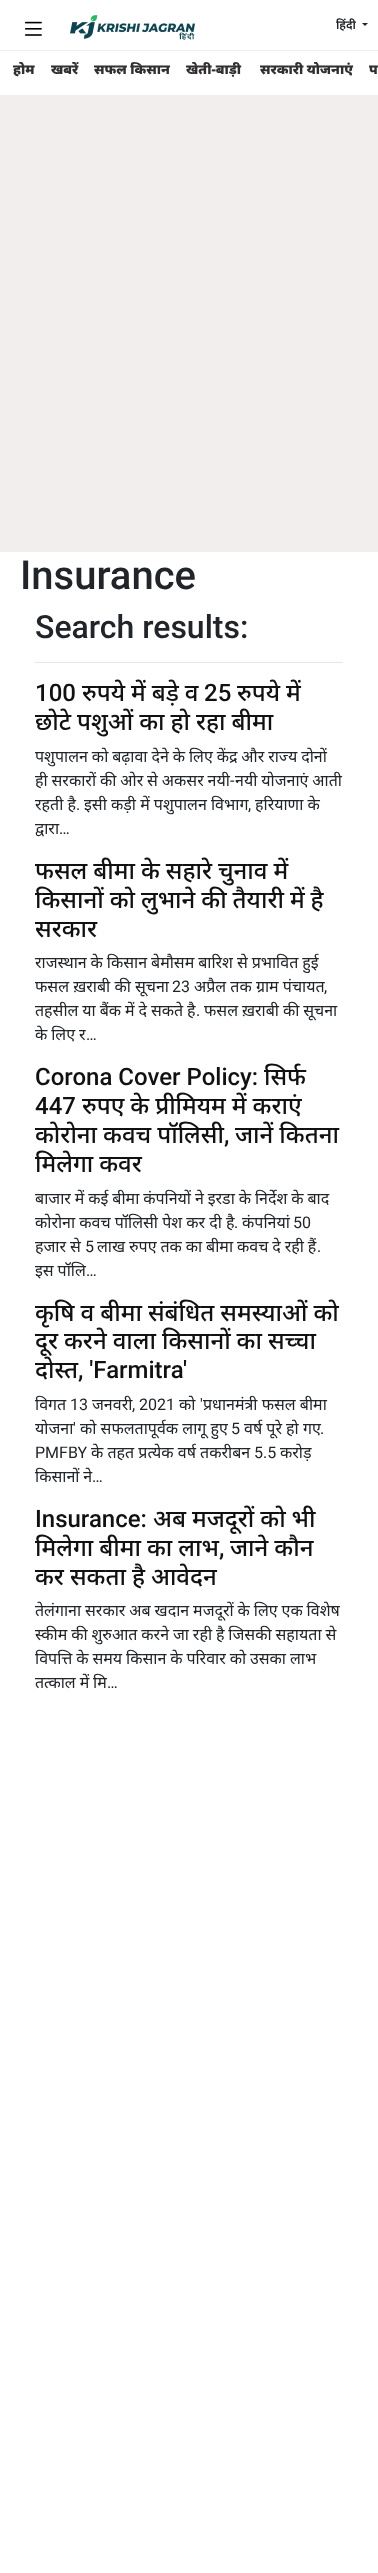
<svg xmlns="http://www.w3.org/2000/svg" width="378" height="2573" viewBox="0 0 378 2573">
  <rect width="100%" height="100%" fill="rgb(255,255,255)"/>
  <image x="24" y="21" width="18" height="15" href="pic1.png"/>
  <image x="70" y="15" width="125" height="25" href="pic2.png"/>
  <text x="336" y="29" font-family="Noto Sans" font-size="12" font-weight="600" fill="rgb(33,37,41)">हिंदी</text>
  <path d="M362 23H368L365 26Z" fill="rgb(33,37,41)"/>
  <rect x="0" y="50" width="378" height="1" fill="rgb(243,239,239)"/>
  <g font-family="Noto Sans" font-size="13.5" font-weight="900" fill="rgb(49,47,47)">
    <text x="13" y="74">होम</text>
    <text x="51" y="74">खबरें</text>
    <text x="94" y="74">सफल किसान</text>
    <text x="186" y="74">खेती-बाड़ी</text>
    <text x="260" y="74">सरकारी योजनाएं</text>
    <text x="369" y="74">प</text>
  </g>
  <rect x="0" y="95" width="378" height="457" fill="rgb(241,238,237)"/>
  <text x="20" y="589" font-family="Roboto" font-size="40" font-weight="500" fill="rgb(33,37,41)">Insurance</text>
  <text x="35" y="638" font-family="Roboto" font-size="32" font-weight="500" fill="rgb(33,37,41)">Search results:</text>
  <rect x="35" y="662" width="308" height="1" fill="rgb(230,230,230)"/>
  <text x="35" y="701" font-family="Roboto" font-size="24" font-weight="500" fill="rgb(17,17,17)">100</text>
  <text x="82" y="701" word-spacing="-0.25" font-family="Noto Sans" font-size="24" font-weight="500" fill="rgb(17,17,17)">रुपये में बड़े व</text>
  <text x="204" y="701" font-family="Roboto" font-size="24" font-weight="500" fill="rgb(17,17,17)">25</text>
  <g font-family="Noto Sans" font-size="24" font-weight="500" fill="rgb(17,17,17)">
    <text x="237" y="701" word-spacing="-0.25">रुपये में</text>
    <text x="35" y="730" word-spacing="-0.25">छोटे पशुओं का हो रहा बीमा</text>
  </g>
  <g font-family="Noto Sans" font-size="16" fill="rgb(33,37,41)">
    <text>
      <tspan x="35" y="762" word-spacing="-0.25">पशुपालन को बढ़ावा देने के लिए केंद्र और राज्य दोनों</tspan>
      <tspan x="35" y="786" word-spacing="-0.25">ही सरकारों की ओर से अकसर नयी</tspan>
    </text>
  </g>
  <text x="230" y="786" font-family="Roboto" font-size="16" fill="rgb(33,37,41)">-</text>
  <g font-family="Noto Sans" font-size="16" fill="rgb(33,37,41)">
    <text x="235" y="786" word-spacing="-0.25">नयी योजनाएं आती</text>
    <text x="35" y="810">रहती है</text>
  </g>
  <text x="76" y="810" font-family="Roboto" font-size="16" fill="rgb(33,37,41)">.</text>
  <text x="84" y="810" font-family="Noto Sans" font-size="16" fill="rgb(33,37,41)">इसी कड़ी में पशुपालन विभाग</text>
  <text x="248" y="810" font-family="Roboto" font-size="16" fill="rgb(33,37,41)">,</text>
  <g font-family="Noto Sans" font-size="16" fill="rgb(33,37,41)">
    <text x="255" y="810">हरियाणा के</text>
    <text x="35" y="834">द्वारा</text>
  </g>
  <text x="59" y="834" font-family="Roboto" font-size="16" fill="rgb(33,37,41)">…</text>
  <g font-family="Noto Sans" font-size="24" font-weight="500" fill="rgb(17,17,17)">
    <text>
      <tspan x="35" y="879" word-spacing="-0.25">फसल बीमा के सहारे चुनाव में</tspan>
      <tspan x="35" y="908" word-spacing="-0.25">किसानों को लुभाने की तैयारी में है</tspan>
      <tspan x="35" y="937">सरकार</tspan>
    </text>
  </g>
  <g font-family="Noto Sans" font-size="16" fill="rgb(33,37,41)">
    <text>
      <tspan x="35" y="968" word-spacing="-0.25">राजस्थान के किसान बेमौसम बारिश से प्रभावित हुई</tspan>
      <tspan x="35" y="992">फसल ख़राबी की सूचना</tspan>
    </text>
  </g>
  <text x="172" y="992" font-family="Roboto" font-size="16" fill="rgb(33,37,41)">23</text>
  <text x="194" y="992" font-family="Noto Sans" font-size="16" fill="rgb(33,37,41)">अप्रैल तक ग्राम पंचायत</text>
  <text x="324" y="992" font-family="Roboto" font-size="16" fill="rgb(33,37,41)">,</text>
  <text x="35" y="1016" word-spacing="-0.25" font-family="Noto Sans" font-size="16" fill="rgb(33,37,41)">तहसील या बैंक में दे सकते है</text>
  <text x="196" y="1016" font-family="Roboto" font-size="16" fill="rgb(33,37,41)">.</text>
  <g font-family="Noto Sans" font-size="16" fill="rgb(33,37,41)">
    <text x="204" y="1016" word-spacing="-0.25">फसल ख़राबी की सूचना</text>
    <text x="35" y="1040" word-spacing="-0.25">के लिए र</text>
  </g>
  <text x="86" y="1040" font-family="Roboto" font-size="16" fill="rgb(33,37,41)">…</text>
  <text x="35" y="1085" font-family="Roboto" font-size="24" font-weight="500" fill="rgb(17,17,17)">Corona Cover Policy:</text>
  <text x="264" y="1085" font-family="Noto Sans" font-size="24" font-weight="500" fill="rgb(17,17,17)">सिर्फ</text>
  <text x="35" y="1114" font-family="Roboto" font-size="24" font-weight="500" fill="rgb(17,17,17)">447</text>
  <g font-family="Noto Sans" font-size="24" font-weight="500" fill="rgb(17,17,17)">
    <text x="82" y="1114" word-spacing="-0.25">रुपए के प्रीमियम में कराएं</text>
    <text x="35" y="1143" word-spacing="-0.25">कोरोना कवच पॉलिसी</text>
  </g>
  <text x="224" y="1143" font-family="Roboto" font-size="24" font-weight="500" fill="rgb(17,17,17)">,</text>
  <g font-family="Noto Sans" font-size="24" font-weight="500" fill="rgb(17,17,17)">
    <text x="235" y="1143" word-spacing="-0.25">जानें कितना</text>
    <text x="35" y="1172" word-spacing="-0.25">मिलेगा कवर</text>
  </g>
  <g font-family="Noto Sans" font-size="16" fill="rgb(33,37,41)">
    <text>
      <tspan x="35" y="1204" word-spacing="-0.25">बाजार में कई बीमा कंपनियों ने इरडा के निर्देश के बाद</tspan>
      <tspan x="35" y="1228">कोरोना कवच पॉलिसी पेश कर दी है</tspan>
    </text>
  </g>
  <text x="234" y="1228" font-family="Roboto" font-size="16" fill="rgb(33,37,41)">.</text>
  <text x="242" y="1228" font-family="Noto Sans" font-size="16" fill="rgb(33,37,41)">कंपनियां</text>
  <text x="293" y="1228" font-family="Roboto" font-size="16" fill="rgb(33,37,41)">50</text>
  <text x="35" y="1252" word-spacing="-0.25" font-family="Noto Sans" font-size="16" fill="rgb(33,37,41)">हजार से</text>
  <text x="85" y="1252" font-family="Roboto" font-size="16" fill="rgb(33,37,41)">5</text>
  <text x="97" y="1252" word-spacing="-0.25" font-family="Noto Sans" font-size="16" fill="rgb(33,37,41)">लाख रुपए तक का बीमा कवच दे रही हैं</text>
  <text x="317" y="1252" font-family="Roboto" font-size="16" fill="rgb(33,37,41)">.</text>
  <text x="35" y="1276" word-spacing="-0.25" font-family="Noto Sans" font-size="16" fill="rgb(33,37,41)">इस पॉलि</text>
  <text x="86" y="1276" font-family="Roboto" font-size="16" fill="rgb(33,37,41)">…</text>
  <g font-family="Noto Sans" font-size="24" font-weight="500" fill="rgb(17,17,17)">
    <text>
      <tspan x="35" y="1321" word-spacing="-0.25">कृषि व बीमा संबंधित समस्याओं को</tspan>
      <tspan x="35" y="1349" word-spacing="-0.25">दूर करने वाला किसानों का सच्चा</tspan>
      <tspan x="35" y="1378">दोस्त</tspan>
    </text>
  </g>
  <text x="78" y="1378" font-family="Roboto" font-size="24" font-weight="500" fill="rgb(17,17,17)">, 'Farmitra'</text>
  <text x="35" y="1410" font-family="Noto Sans" font-size="16" fill="rgb(33,37,41)">विगत</text>
  <text x="70" y="1410" font-family="Roboto" font-size="16" fill="rgb(33,37,41)">13</text>
  <text x="92" y="1410" font-family="Noto Sans" font-size="16" fill="rgb(33,37,41)">जनवरी</text>
  <text x="132" y="1410" font-family="Roboto" font-size="16" fill="rgb(33,37,41)">, 2021</text>
  <text x="179" y="1410" font-family="Noto Sans" font-size="16" fill="rgb(33,37,41)">को</text>
  <text x="200" y="1410" font-family="Roboto" font-size="16" fill="rgb(33,37,41)">'</text>
  <g font-family="Noto Sans" font-size="16" fill="rgb(33,37,41)">
    <text x="203" y="1410">प्रधानमंत्री फसल बीमा</text>
    <text x="35" y="1434">योजना</text>
  </g>
  <text x="73" y="1434" font-family="Roboto" font-size="16" fill="rgb(33,37,41)">'</text>
  <text x="80" y="1434" font-family="Noto Sans" font-size="16" fill="rgb(33,37,41)">को सफलतापूर्वक लागू हुए</text>
  <text x="231" y="1434" font-family="Roboto" font-size="16" fill="rgb(33,37,41)">5</text>
  <text x="244" y="1434" font-family="Noto Sans" font-size="16" fill="rgb(33,37,41)">वर्ष पूरे हो गए</text>
  <g font-family="Roboto" font-size="16" fill="rgb(33,37,41)">
    <text x="320" y="1434">.</text>
    <text x="35" y="1458">PMFBY</text>
  </g>
  <text x="91" y="1458" font-family="Noto Sans" font-size="16" fill="rgb(33,37,41)">के तहत प्रत्येक वर्ष तकरीबन</text>
  <text x="254" y="1458" font-family="Roboto" font-size="16" fill="rgb(33,37,41)">5.5</text>
  <g font-family="Noto Sans" font-size="16" fill="rgb(33,37,41)">
    <text x="280" y="1458">करोड़</text>
    <text x="35" y="1482" word-spacing="-0.25">किसानों ने</text>
  </g>
  <text x="92" y="1482" font-family="Roboto" font-size="16" fill="rgb(33,37,41)">…</text>
  <text x="35" y="1527" font-family="Roboto" font-size="24" font-weight="500" fill="rgb(17,17,17)">Insurance:</text>
  <g font-family="Noto Sans" font-size="24" font-weight="500" fill="rgb(17,17,17)">
    <text x="153" y="1527" word-spacing="-0.25">अब मजदूरों को भी</text>
    <text x="35" y="1556" word-spacing="-0.25">मिलेगा बीमा का लाभ</text>
  </g>
  <text x="219" y="1556" font-family="Roboto" font-size="24" font-weight="500" fill="rgb(17,17,17)">,</text>
  <g font-family="Noto Sans" font-size="24" font-weight="500" fill="rgb(17,17,17)">
    <text x="230" y="1556" word-spacing="-0.25">जाने कौन</text>
    <text x="35" y="1585" word-spacing="-0.25">कर सकता है आवेदन</text>
  </g>
  <g font-family="Noto Sans" font-size="16" fill="rgb(33,37,41)">
    <text>
      <tspan x="35" y="1616" word-spacing="-0.25">तेलंगाना सरकार अब खदान मजदूरों के लिए एक विशेष</tspan>
      <tspan x="35" y="1640" word-spacing="-0.25">स्कीम की शुरुआत करने जा रही है जिसकी सहायता से</tspan>
      <tspan x="35" y="1664" word-spacing="-0.25">विपत्ति के समय किसान के परिवार को उसका लाभ</tspan>
      <tspan x="35" y="1688" word-spacing="-0.25">तत्काल में मि</tspan>
    </text>
  </g>
  <text x="107" y="1688" font-family="Roboto" font-size="16" fill="rgb(33,37,41)">…</text>
</svg>
